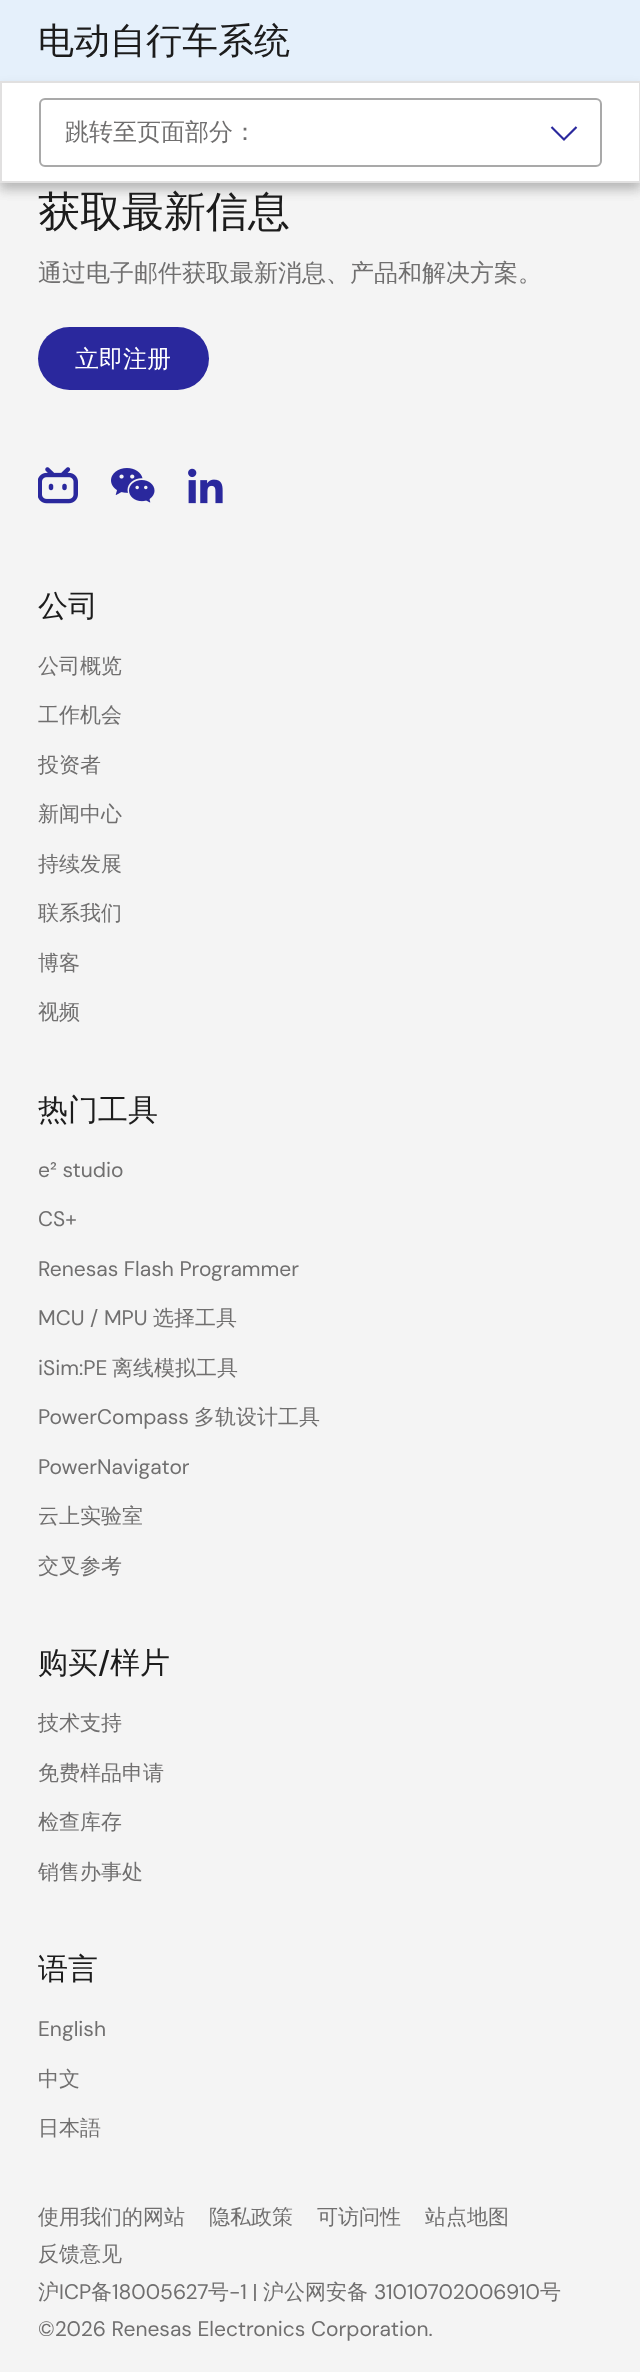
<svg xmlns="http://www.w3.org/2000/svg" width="640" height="2372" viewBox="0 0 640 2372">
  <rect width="100%" height="100%" fill="rgb(244,244,244)"/>
  <rect x="0" y="6" width="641" height="183" fill="rgba(13,13,14,0.15)" filter="blur(6px)"/>
  <rect x="0" y="0" width="640" height="81" fill="rgb(229,240,251)"/>
  <text x="38" y="53" font-family="WenQuanYi Zen Hei" font-size="36" font-weight="500" fill="rgb(28,28,28)">电动自行车系统</text>
  <rect x="0" y="87" width="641" height="102" fill="rgba(13,13,14,0.15)" filter="blur(6px)"/>
  <rect x="1" y="82" width="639" height="100" fill="rgb(255,255,255)" stroke="rgb(225,224,224)" stroke-width="2"/>
  <rect x="40" y="99" width="561" height="67" rx="5" fill="none" stroke="rgb(169,169,169)" stroke-width="2"/>
  <text x="65" y="140" font-family="WenQuanYi Zen Hei" font-size="24" font-weight="500" fill="rgb(112,111,111)">跳转至页面部分：</text>
  <image x="550" y="126" width="28" height="15" href="pic1.png"/>
  <text x="38" y="226" font-family="WenQuanYi Zen Hei" font-size="42" font-weight="500" fill="rgb(28,28,28)">获取最新信息</text>
  <text x="38" y="281" font-family="WenQuanYi Zen Hei" font-size="24" font-weight="500" fill="rgb(112,111,111)">通过电子邮件获取最新消息、产品和解决方案。</text>
  <rect x="38" y="327" width="171" height="63" rx="31.5" fill="rgb(42,40,157)"/>
  <text x="75" y="367" font-family="WenQuanYi Zen Hei" font-size="24" font-weight="500" fill="rgb(255,255,255)">立即注册</text>
  <image x="38" y="467" width="40" height="37" href="pic2.png"/>
  <image x="111" y="468" width="44" height="35" href="pic3.png"/>
  <image x="188" y="468" width="35" height="36" href="pic4.png"/>
  <text x="38" y="616" font-family="WenQuanYi Zen Hei" font-size="30" font-weight="500" fill="rgb(28,28,28)">公司</text>
  <g font-family="WenQuanYi Zen Hei" font-size="21" font-weight="500" fill="rgb(112,111,111)">
    <text x="38" y="673">公司概览</text>
    <text x="38" y="722">工作机会</text>
    <text x="38" y="772">投资者</text>
    <text x="38" y="821">新闻中心</text>
    <text x="38" y="871">持续发展</text>
    <text x="38" y="920">联系我们</text>
    <text x="38" y="970">博客</text>
    <text x="38" y="1019">视频</text>
  </g>
  <text x="38" y="1120" font-family="WenQuanYi Zen Hei" font-size="30" font-weight="500" fill="rgb(28,28,28)">热门工具</text>
  <g font-family="DM Sans" font-size="21" fill="rgb(112,111,111)">
    <text x="38" y="1177">e² studio</text>
    <text x="38" y="1226">CS+</text>
    <text x="38" y="1276">Renesas Flash Programmer</text>
    <text x="38" y="1325">MCU / MPU</text>
  </g>
  <text x="153" y="1325" font-family="WenQuanYi Zen Hei" font-size="21" font-weight="500" fill="rgb(112,111,111)">选择工具</text>
  <text x="38" y="1375" font-family="DM Sans" font-size="21" fill="rgb(112,111,111)">iSim:PE</text>
  <text x="112" y="1375" font-family="WenQuanYi Zen Hei" font-size="21" font-weight="500" fill="rgb(112,111,111)">离线模拟工具</text>
  <text x="38" y="1424" font-family="DM Sans" font-size="21" fill="rgb(112,111,111)">PowerCompass</text>
  <text x="194" y="1424" font-family="WenQuanYi Zen Hei" font-size="21" font-weight="500" fill="rgb(112,111,111)">多轨设计工具</text>
  <text x="38" y="1474" font-family="DM Sans" font-size="21" fill="rgb(112,111,111)">PowerNavigator</text>
  <g font-family="WenQuanYi Zen Hei" font-size="21" font-weight="500" fill="rgb(112,111,111)">
    <text x="38" y="1523">云上实验室</text>
    <text x="38" y="1573">交叉参考</text>
  </g>
  <text x="38" y="1673" font-family="WenQuanYi Zen Hei" font-size="30" font-weight="500" fill="rgb(28,28,28)">购买</text>
  <text x="98" y="1673" font-family="DM Sans" font-size="30" font-weight="500" fill="rgb(28,28,28)">/</text>
  <text x="110" y="1673" font-family="WenQuanYi Zen Hei" font-size="30" font-weight="500" fill="rgb(28,28,28)">样片</text>
  <g font-family="WenQuanYi Zen Hei" font-size="21" font-weight="500" fill="rgb(112,111,111)">
    <text x="38" y="1730">技术支持</text>
    <text x="38" y="1780">免费样品申请</text>
    <text x="38" y="1829">检查库存</text>
    <text x="38" y="1879">销售办事处</text>
  </g>
  <text x="38" y="1979" font-family="WenQuanYi Zen Hei" font-size="30" font-weight="500" fill="rgb(28,28,28)">语言</text>
  <text x="38" y="2036" font-family="DM Sans" font-size="21" fill="rgb(112,111,111)">English</text>
  <g font-family="WenQuanYi Zen Hei" font-size="21" font-weight="500" fill="rgb(112,111,111)">
    <text x="38" y="2086">中文</text>
    <text x="38" y="2135">日本語</text>
    <text x="38" y="2224">使用我们的网站</text>
    <text x="209" y="2224">隐私政策</text>
    <text x="317" y="2224">可访问性</text>
    <text x="425" y="2224">站点地图</text>
    <text>
      <tspan x="38" y="2261">反馈意见</tspan>
      <tspan x="38" y="2299">沪</tspan>
    </text>
  </g>
  <text x="59" y="2299" font-family="DM Sans" font-size="21" fill="rgb(112,111,111)">ICP</text>
  <text x="91" y="2299" font-family="WenQuanYi Zen Hei" font-size="21" font-weight="500" fill="rgb(112,111,111)">备</text>
  <text x="112" y="2299" font-family="DM Sans" font-size="21" fill="rgb(112,111,111)">18005627</text>
  <text x="208" y="2299" font-family="WenQuanYi Zen Hei" font-size="21" font-weight="500" fill="rgb(112,111,111)">号</text>
  <text x="229" y="2299" font-family="DM Sans" font-size="21" fill="rgb(112,111,111)">-1 |</text>
  <text x="263" y="2299" font-family="WenQuanYi Zen Hei" font-size="21" font-weight="500" fill="rgb(112,111,111)">沪公网安备</text>
  <text x="374" y="2299" font-family="DM Sans" font-size="21" fill="rgb(112,111,111)">31010702006910</text>
  <text x="540" y="2299" font-family="WenQuanYi Zen Hei" font-size="21" font-weight="500" fill="rgb(112,111,111)">号</text>
  <text x="38" y="2336" font-family="DM Sans" font-size="21" fill="rgb(112,111,111)">©2026 Renesas Electronics Corporation.</text>
</svg>
